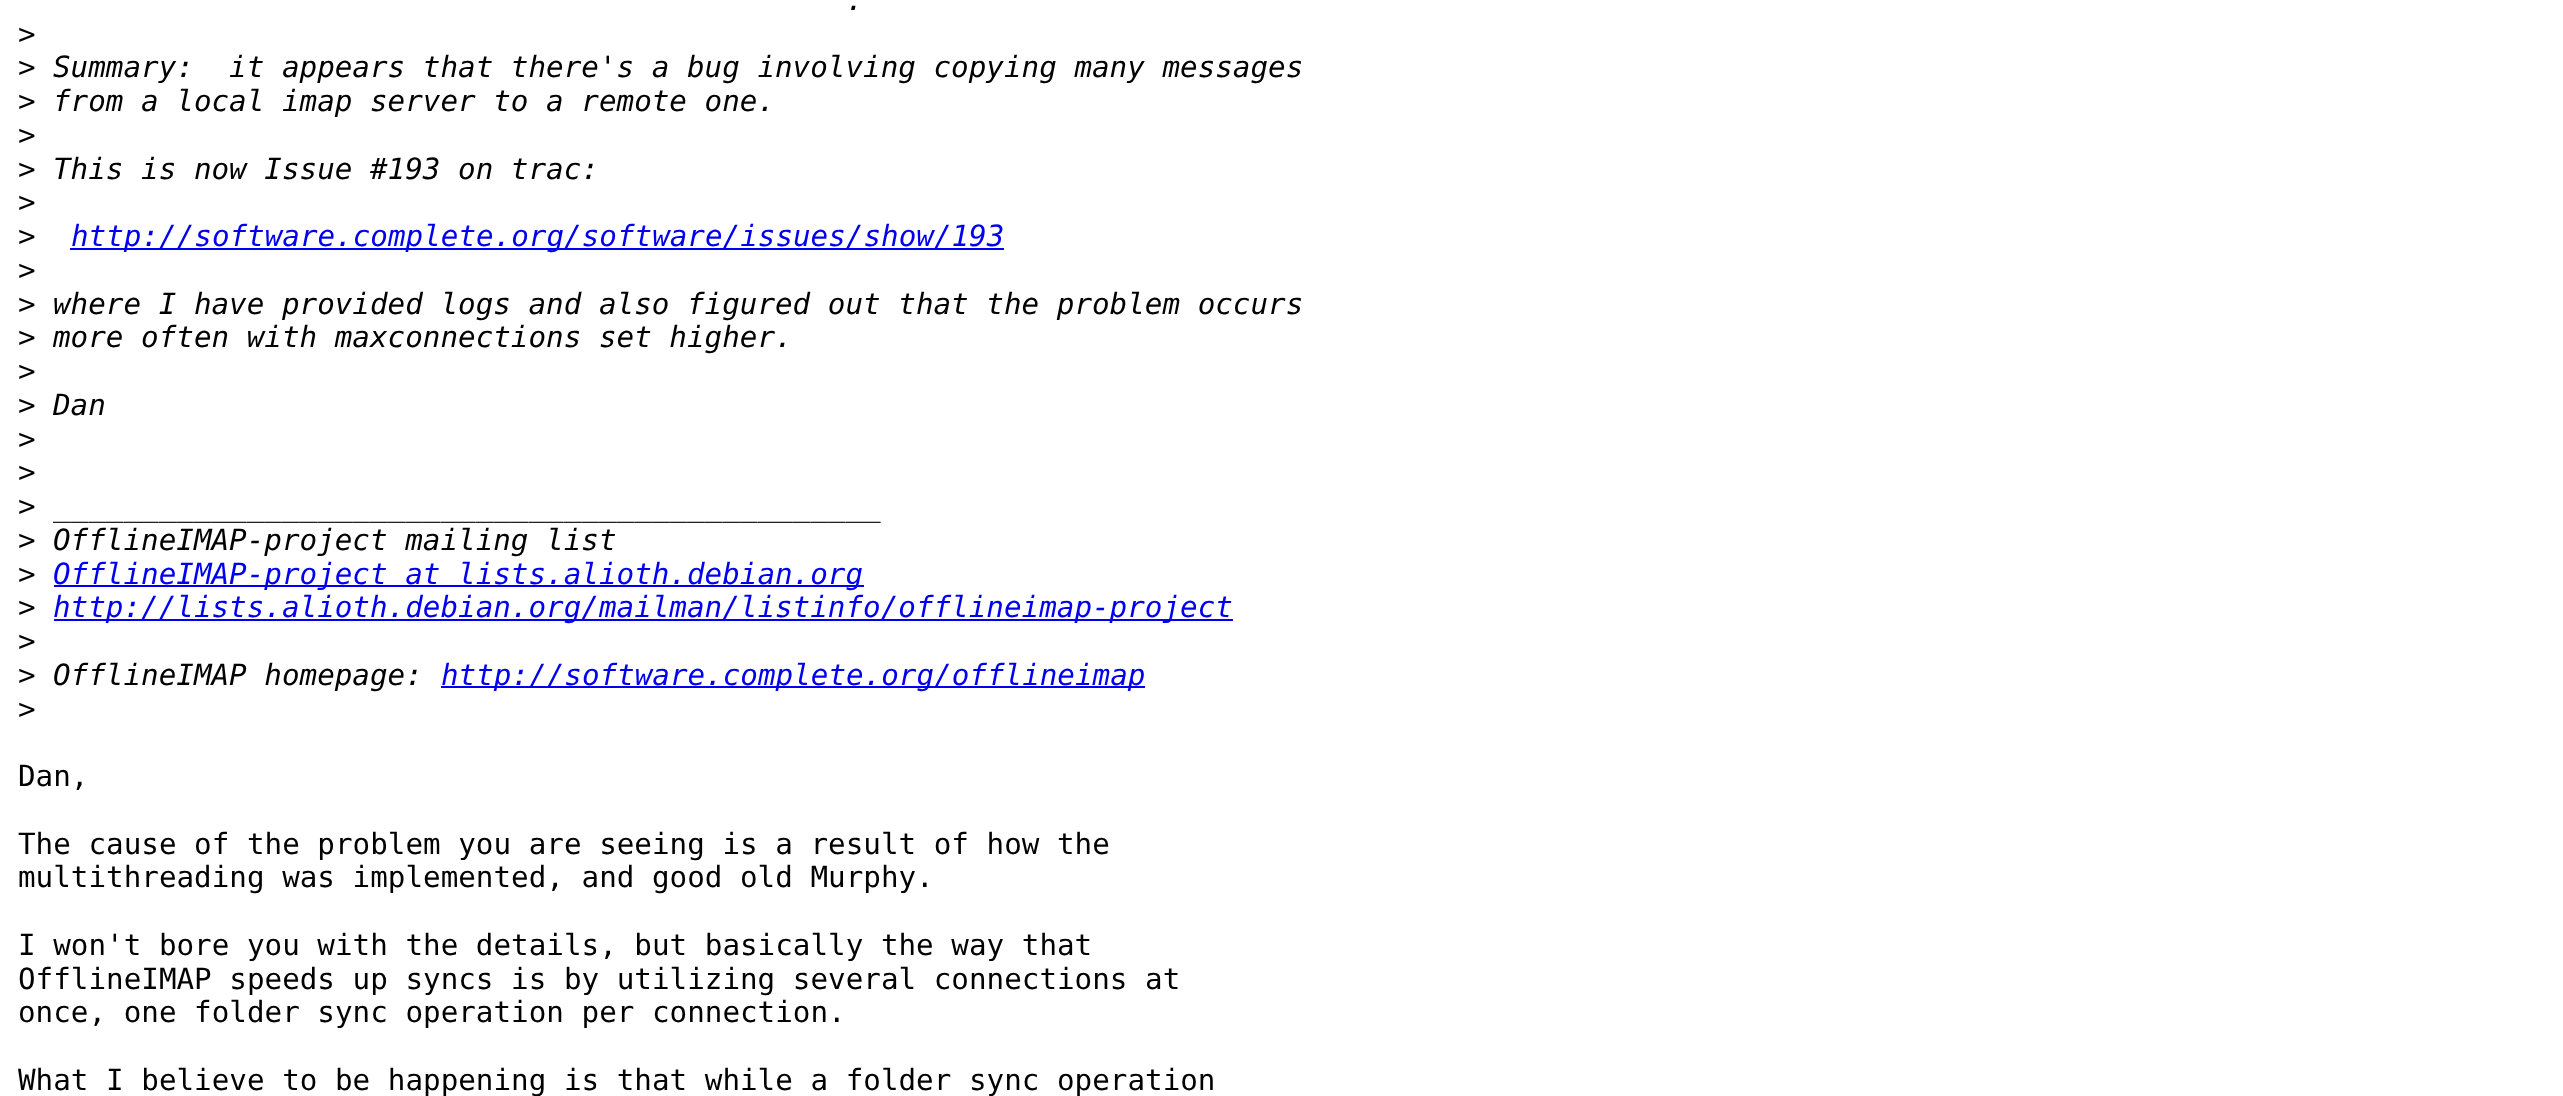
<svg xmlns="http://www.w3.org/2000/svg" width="2563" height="1096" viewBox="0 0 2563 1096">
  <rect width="100%" height="100%" fill="rgb(255,255,255)"/>
  <text x="846" y="10" font-family="DejaVu Sans Mono" font-size="29.25" font-style="italic" fill="rgb(0,0,0)">.</text>
  <g font-family="DejaVu Sans Mono" font-size="29.25" fill="rgb(0,0,0)">
    <text>
      <tspan x="18" y="44">&gt;</tspan>
      <tspan x="18" y="77">&gt;</tspan>
    </text>
  </g>
  <text x="53" y="77" font-family="DejaVu Sans Mono" font-size="29.25" font-style="italic" fill="rgb(0,0,0)" xml:space="preserve">Summary:  it appears that there's a bug involving copying many messages</text>
  <text x="18" y="111" font-family="DejaVu Sans Mono" font-size="29.25" fill="rgb(0,0,0)">&gt;</text>
  <text x="53" y="111" font-family="DejaVu Sans Mono" font-size="29.25" font-style="italic" fill="rgb(0,0,0)">from a local imap server to a remote one.</text>
  <g font-family="DejaVu Sans Mono" font-size="29.25" fill="rgb(0,0,0)">
    <text>
      <tspan x="18" y="145">&gt;</tspan>
      <tspan x="18" y="179">&gt;</tspan>
    </text>
  </g>
  <text x="53" y="179" font-family="DejaVu Sans Mono" font-size="29.25" font-style="italic" fill="rgb(0,0,0)">This is now Issue #193 on trac:</text>
  <g font-family="DejaVu Sans Mono" font-size="29.25" fill="rgb(0,0,0)">
    <text>
      <tspan x="18" y="212">&gt;</tspan>
      <tspan x="18" y="246">&gt;</tspan>
    </text>
  </g>
  <rect x="70" y="248" width="934" height="2" fill="rgb(0,0,238)"/>
  <text x="71" y="246" font-family="DejaVu Sans Mono" font-size="29.25" font-style="italic" fill="rgb(0,0,238)">http://software.complete.org/software/issues/show/193</text>
  <g font-family="DejaVu Sans Mono" font-size="29.25" fill="rgb(0,0,0)">
    <text>
      <tspan x="18" y="280">&gt;</tspan>
      <tspan x="18" y="314">&gt;</tspan>
    </text>
  </g>
  <text x="53" y="314" font-family="DejaVu Sans Mono" font-size="29.25" font-style="italic" fill="rgb(0,0,0)">where I have provided logs and also figured out that the problem occurs</text>
  <text x="18" y="347" font-family="DejaVu Sans Mono" font-size="29.25" fill="rgb(0,0,0)">&gt;</text>
  <text x="53" y="347" font-family="DejaVu Sans Mono" font-size="29.25" font-style="italic" fill="rgb(0,0,0)">more often with maxconnections set higher.</text>
  <g font-family="DejaVu Sans Mono" font-size="29.25" fill="rgb(0,0,0)">
    <text>
      <tspan x="18" y="381">&gt;</tspan>
      <tspan x="18" y="415">&gt;</tspan>
    </text>
  </g>
  <text x="53" y="415" font-family="DejaVu Sans Mono" font-size="29.25" font-style="italic" fill="rgb(0,0,0)">Dan</text>
  <g font-family="DejaVu Sans Mono" font-size="29.25" fill="rgb(0,0,0)">
    <text>
      <tspan x="18" y="449">&gt;</tspan>
      <tspan x="18" y="482">&gt;</tspan>
      <tspan x="18" y="516">&gt;</tspan>
    </text>
  </g>
  <text x="53" y="516" font-family="DejaVu Sans Mono" font-size="29.25" font-style="italic" fill="rgb(0,0,0)">_______________________________________________</text>
  <text x="18" y="550" font-family="DejaVu Sans Mono" font-size="29.25" fill="rgb(0,0,0)">&gt;</text>
  <text x="53" y="550" font-family="DejaVu Sans Mono" font-size="29.25" font-style="italic" fill="rgb(0,0,0)">OfflineIMAP-project mailing list</text>
  <text x="18" y="584" font-family="DejaVu Sans Mono" font-size="29.25" fill="rgb(0,0,0)">&gt;</text>
  <rect x="54" y="585" width="810" height="2" fill="rgb(0,0,238)"/>
  <text x="53" y="584" font-family="DejaVu Sans Mono" font-size="29.25" font-style="italic" fill="rgb(0,0,238)">OfflineIMAP-project at lists.alioth.debian.org</text>
  <text x="18" y="617" font-family="DejaVu Sans Mono" font-size="29.25" fill="rgb(0,0,0)">&gt;</text>
  <rect x="54" y="619" width="1179" height="2" fill="rgb(0,0,238)"/>
  <text x="53" y="617" font-family="DejaVu Sans Mono" font-size="29.25" font-style="italic" fill="rgb(0,0,238)">http://lists.alioth.debian.org/mailman/listinfo/offlineimap-project</text>
  <g font-family="DejaVu Sans Mono" font-size="29.25" fill="rgb(0,0,0)">
    <text>
      <tspan x="18" y="651">&gt;</tspan>
      <tspan x="18" y="685">&gt;</tspan>
    </text>
  </g>
  <text x="53" y="685" font-family="DejaVu Sans Mono" font-size="29.25" font-style="italic" fill="rgb(0,0,0)">OfflineIMAP homepage:</text>
  <rect x="441" y="686" width="704" height="2" fill="rgb(0,0,238)"/>
  <text x="441" y="685" font-family="DejaVu Sans Mono" font-size="29.25" font-style="italic" fill="rgb(0,0,238)">http://software.complete.org/offlineimap</text>
  <g font-family="DejaVu Sans Mono" font-size="29.25" fill="rgb(0,0,0)">
    <text x="18" y="719">&gt;</text>
    <text x="18" y="786">Dan,</text>
    <text>
      <tspan x="18" y="854">The cause of the problem you are seeing is a result of how the</tspan>
      <tspan x="18" y="887">multithreading was implemented, and good old Murphy.</tspan>
    </text>
    <text>
      <tspan x="18" y="955">I won't bore you with the details, but basically the way that</tspan>
      <tspan x="18" y="989">OfflineIMAP speeds up syncs is by utilizing several connections at</tspan>
      <tspan x="18" y="1022">once, one folder sync operation per connection.</tspan>
    </text>
    <text x="18" y="1090">What I believe to be happening is that while a folder sync operation</text>
  </g>
</svg>
